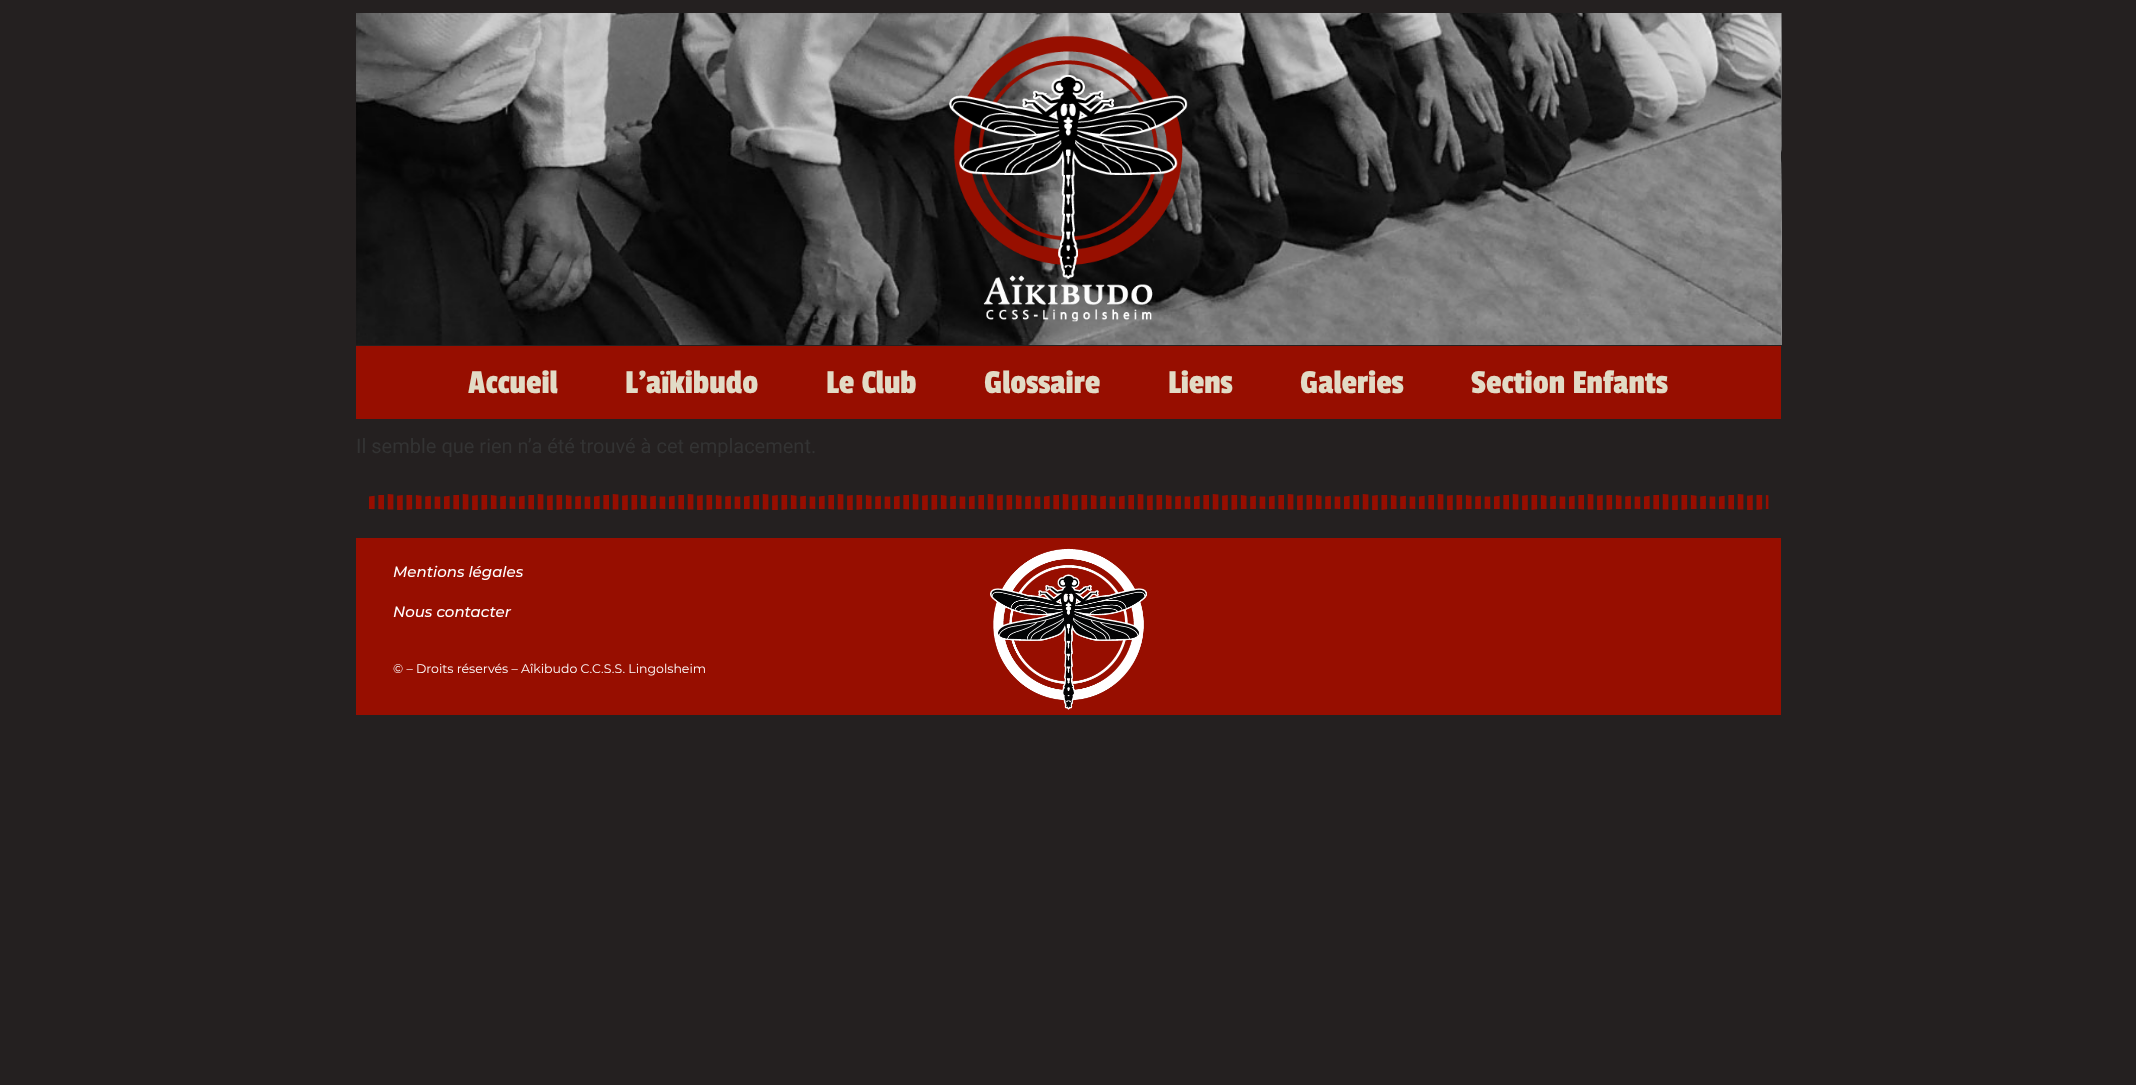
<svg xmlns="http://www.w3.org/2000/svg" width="2136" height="1085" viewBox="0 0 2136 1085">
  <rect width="100%" height="100%" fill="rgb(36,32,32)"/>
  <image x="356" y="13" width="1426" height="332" href="pic1.png"/>
  <image x="1781" y="13" width="1" height="332" href="pic2.png"/>
  <image x="949" y="35" width="239" height="287" href="pic3.png"/>
  <rect x="356" y="346" width="1425" height="73" fill="rgb(151,14,0)"/>
  <g font-family="Passion One" font-size="35" fill="rgb(226,219,198)">
    <text x="468" y="393">Accueil</text>
    <text x="625" y="393">L’aïkibudo</text>
    <text x="826" y="393">Le Club</text>
    <text x="984" y="393">Glossaire</text>
    <text x="1168" y="393">Liens</text>
    <text x="1300" y="393">Galeries</text>
    <text x="1471" y="393">Section Enfants</text>
  </g>
  <text x="356" y="453" font-family="Roboto" font-size="20" fill="rgb(51,51,51)">Il semble que rien n’a été trouvé à cet emplacement.</text>
  <image x="369" y="494" width="1400" height="16" href="pic4.png"/>
  <rect x="356" y="538" width="1425" height="177" fill="rgb(151,14,0)"/>
  <g font-family="Montserrat" font-size="15" font-weight="500" font-style="italic" fill="rgb(255,255,255)">
    <text x="393" y="577">Mentions légales</text>
    <text x="393" y="617">Nous contacter</text>
  </g>
  <text x="393" y="673" font-family="Montserrat" font-size="12.5" fill="rgb(255,255,255)">© – Droits réservés – Aîkibudo C.C.S.S. Lingolsheim</text>
  <image x="990" y="548" width="157" height="162" href="pic5.png"/>
</svg>
